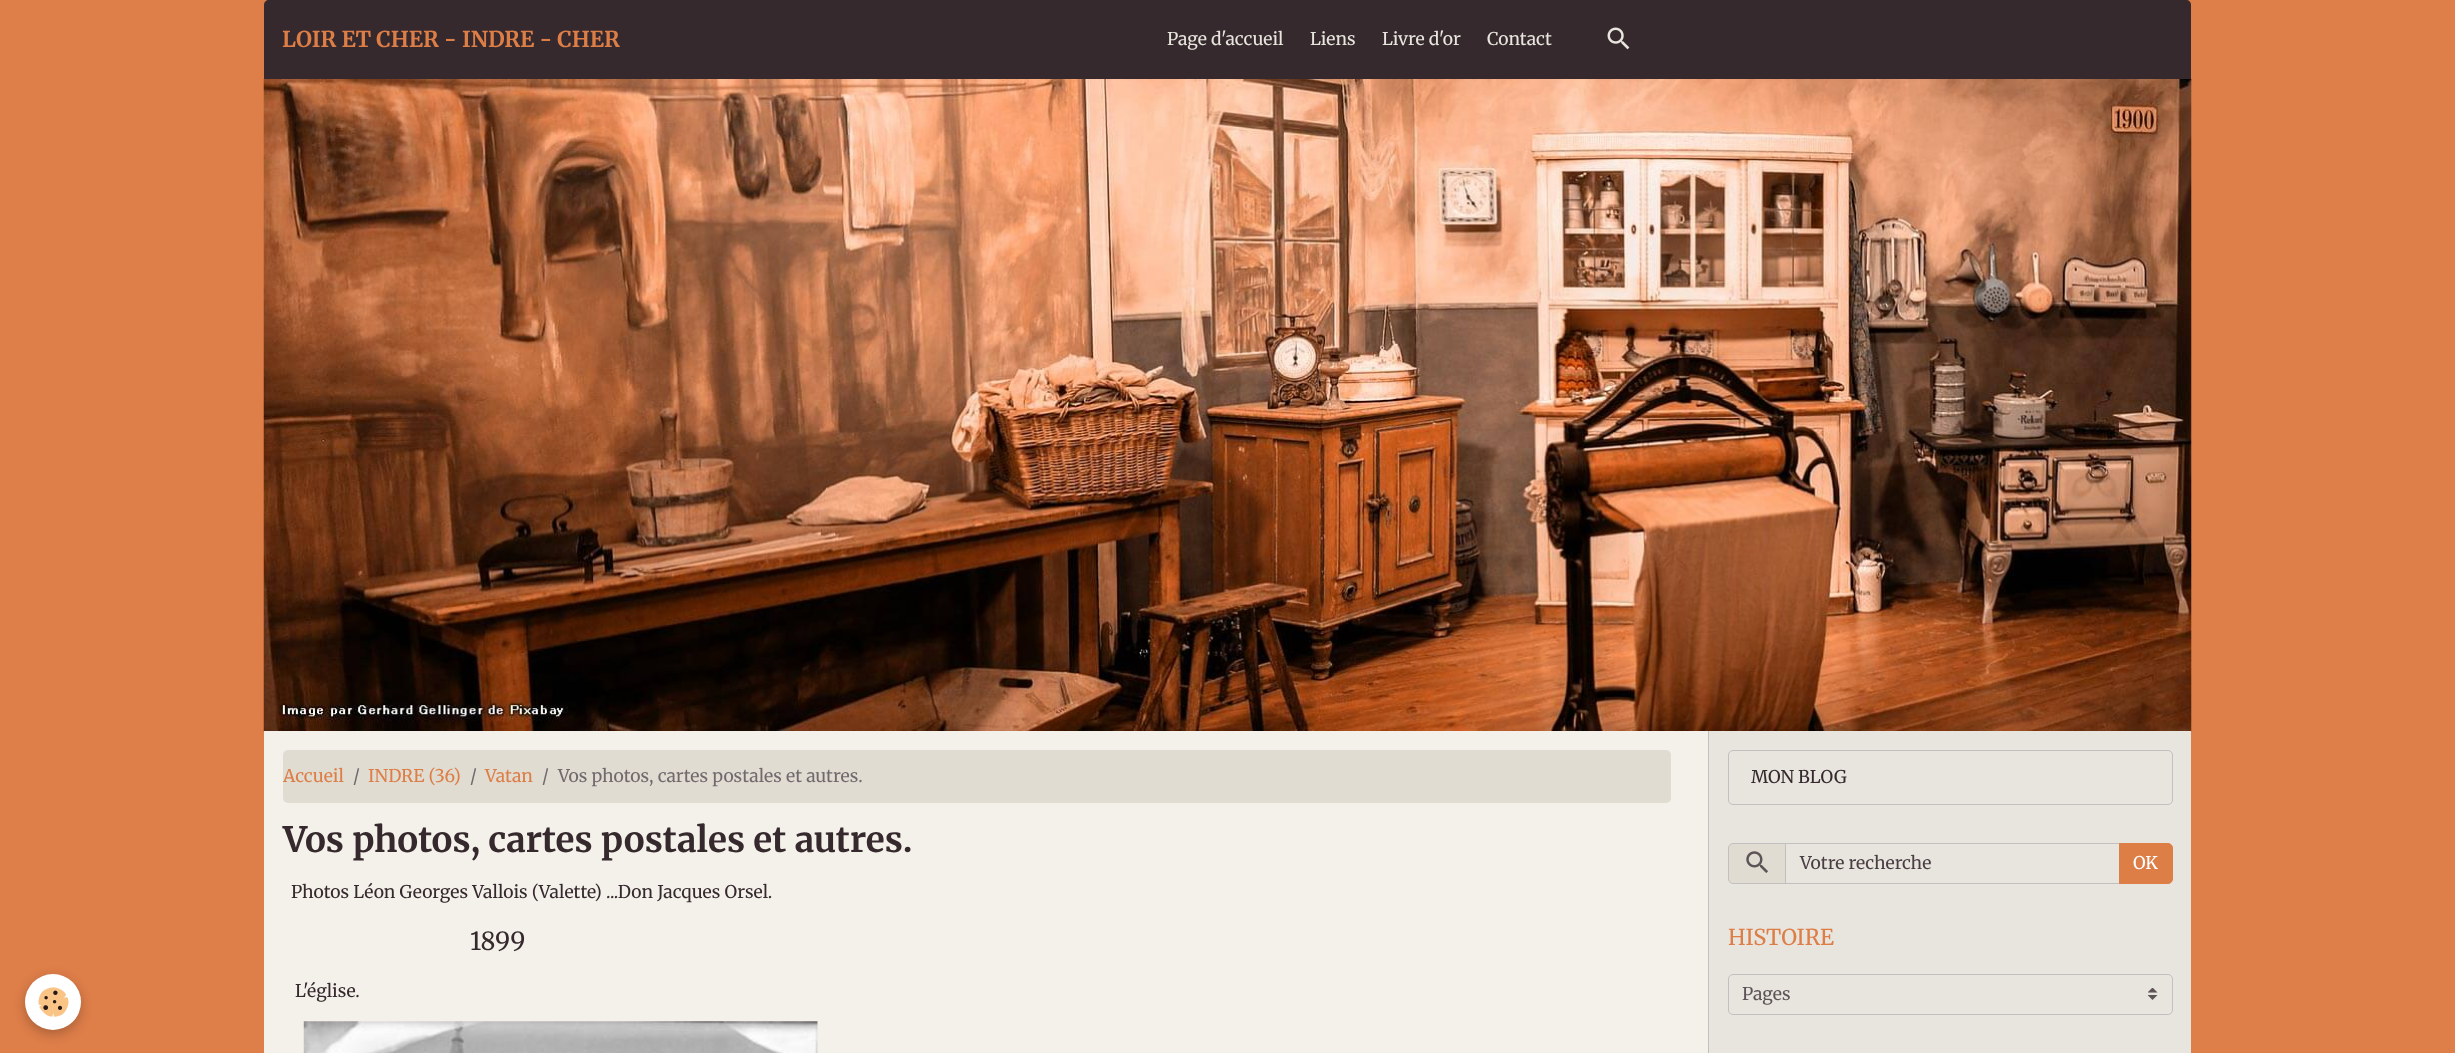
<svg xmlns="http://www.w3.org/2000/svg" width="2455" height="1053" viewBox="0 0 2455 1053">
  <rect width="100%" height="100%" fill="rgb(222,126,73)"/>
  <image x="263" y="78" width="1929" height="654" href="pic2.png"/>
  <path d="M269 0H2186C2189 0 2191 2 2191 5V79H264V5C264 2 266 0 269 0Z" fill="rgb(53,41,46)"/>
  <text x="282" y="47" font-family="Merriweather" font-size="21.9" font-weight="bold" fill="rgb(221,126,71)">LOIR ET CHER - INDRE - CHER</text>
  <g font-family="Merriweather" font-size="17.5" fill="rgb(232,229,222)">
    <text x="1167" y="45">Page d'accueil</text>
    <text x="1310" y="45">Liens</text>
    <text x="1382" y="45">Livre d'or</text>
    <text x="1487" y="45">Contact</text>
  </g>
  <image x="1607" y="27" width="23" height="23" href="pic1.png"/>
  <rect x="25" y="978" width="56" height="56" rx="28" fill="rgba(0,0,0,0.24)" filter="blur(6px)"/>
  <circle cx="53" cy="1002" r="28" fill="rgb(255,255,255)"/>
  <image x="38" y="987" width="31" height="30" href="pic3.png"/>
  <rect x="264" y="731" width="1444" height="322" fill="rgb(244,241,234)"/>
  <rect x="283" y="750" width="1388" height="53" rx="5" fill="rgb(224,220,210)"/>
  <text x="283" y="782" font-family="Merriweather" font-size="17.5" fill="rgb(221,126,71)">Accueil</text>
  <text x="353" y="782" font-family="Merriweather" font-size="17.5" fill="rgb(114,105,109)">/</text>
  <text x="368" y="782" font-family="Merriweather" font-size="17.5" fill="rgb(221,126,71)">INDRE (36)</text>
  <text x="470" y="782" font-family="Merriweather" font-size="17.5" fill="rgb(114,105,109)">/</text>
  <text x="485" y="782" font-family="Merriweather" font-size="17.5" fill="rgb(221,126,71)">Vatan</text>
  <g font-family="Merriweather" font-size="17.5" fill="rgb(114,105,109)">
    <text x="542" y="782">/</text>
    <text x="558" y="782">Vos photos, cartes postales et autres.</text>
  </g>
  <rect x="1708" y="731" width="1" height="322" fill="rgb(194,191,192)"/>
  <text x="283" y="852" font-family="Merriweather" font-size="35" font-weight="bold" fill="rgb(53,41,46)">Vos photos, cartes postales et autres.</text>
  <text x="291" y="898" font-family="Merriweather" font-size="17.5" fill="rgb(53,41,46)">Photos Léon Georges Vallois (Valette) ...Don Jacques Orsel.</text>
  <text x="470" y="950" font-family="Merriweather" font-size="25" fill="rgb(53,41,46)">1899</text>
  <text x="295" y="997" font-family="Merriweather" font-size="17.5" fill="rgb(53,41,46)">L'église.</text>
  <image x="303" y="1021" width="515" height="32" href="pic4.png"/>
  <rect x="1709" y="731" width="482" height="322" fill="rgb(232,228,222)"/>
  <rect x="1728.5" y="750.5" width="444" height="54" rx="4.5" fill="none" stroke="rgb(194,191,192)"/>
  <text x="1751" y="783" font-family="Merriweather" font-size="17.5" fill="rgb(53,41,46)">MON BLOG</text>
  <path d="M1733 843.5H1785.5V883.5H1733C1730.5 883.5 1728.5 881.5 1728.5 879V848C1728.5 845.5 1730.5 843.5 1733 843.5Z" fill="rgb(224,220,210)" stroke="rgb(194,191,192)"/>
  <image x="1746" y="851" width="22" height="22" href="pic5.png"/>
  <rect x="1785.5" y="843.5" width="334" height="40" fill="none" stroke="rgb(194,191,192)"/>
  <text x="1800" y="869" font-family="Merriweather" font-size="17.5" fill="rgb(73,62,67)">Votre recherche</text>
  <path d="M2119.5 843.5H2168C2170.5 843.5 2172.5 845.5 2172.5 848V879C2172.5 881.5 2170.5 883.5 2168 883.5H2119.5Z" fill="rgb(221,126,71)" stroke="rgb(221,126,71)"/>
  <text x="2133" y="869" font-family="Merriweather" font-size="17.5" fill="rgb(255,255,255)">OK</text>
  <text x="1728" y="945" font-family="Merriweather" font-size="21.9" fill="rgb(221,126,71)">HISTOIRE</text>
  <image x="2148" y="988" width="10" height="12" href="pic6.png"/>
  <rect x="1728.5" y="974.5" width="444" height="40" rx="4.5" fill="none" stroke="rgb(194,191,192)"/>
  <text x="1742" y="1000" font-family="Merriweather" font-size="17.5" fill="rgb(93,84,88)">Pages</text>
</svg>
